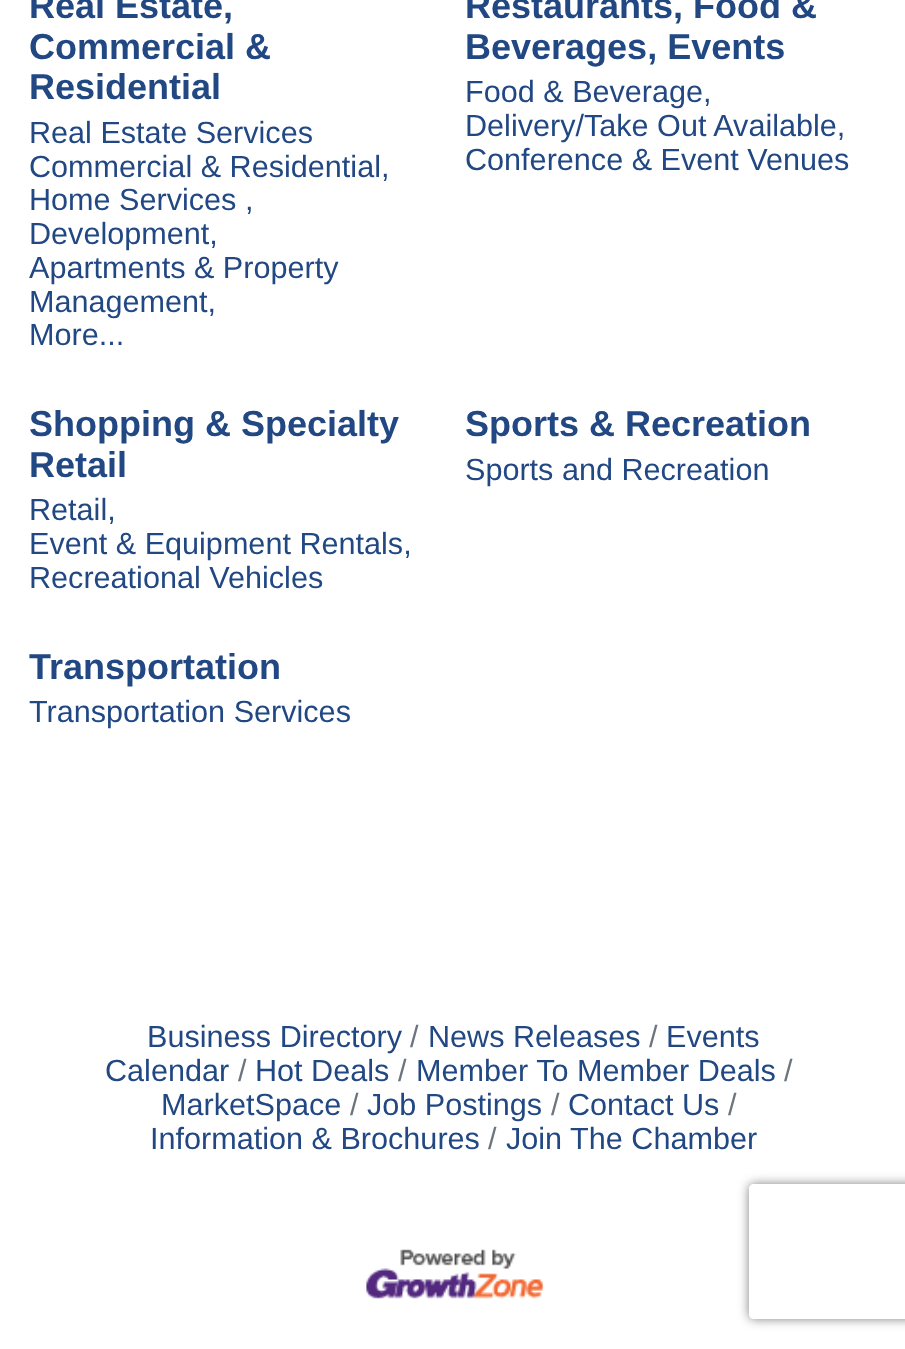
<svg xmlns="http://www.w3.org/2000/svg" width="905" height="1349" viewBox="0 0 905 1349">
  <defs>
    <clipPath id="clip1"><path d="M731 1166H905V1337H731ZM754 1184H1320C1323 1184 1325 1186 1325 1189V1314C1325 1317 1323 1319 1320 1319H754C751 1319 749 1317 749 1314V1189C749 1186 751 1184 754 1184Z" clip-rule="evenodd"/></clipPath>
  </defs>
  <rect width="100%" height="100%" fill="rgb(255,255,255)"/>
  <g font-family="Liberation Sans" font-size="36" font-weight="bold" fill="rgb(34,72,132)">
    <text>
      <tspan x="29" y="18">Real Estate,</tspan>
      <tspan x="29" y="59">Commercial &amp;</tspan>
      <tspan x="29" y="99">Residential</tspan>
    </text>
  </g>
  <g font-family="Liberation Sans" font-size="30.6" fill="rgb(34,72,132)">
    <text>
      <tspan x="29" y="143">Real Estate Services</tspan>
      <tspan x="29" y="177">Commercial &amp; Residential,</tspan>
      <tspan x="29" y="210">Home Services ,</tspan>
      <tspan x="29" y="244">Development,</tspan>
      <tspan x="29" y="278">Apartments &amp; Property</tspan>
      <tspan x="29" y="312">Management,</tspan>
      <tspan x="29" y="345">More...</tspan>
    </text>
  </g>
  <g font-family="Liberation Sans" font-size="36" font-weight="bold" fill="rgb(34,72,132)">
    <text>
      <tspan x="465" y="18">Restaurants, Food &amp;</tspan>
      <tspan x="465" y="59">Beverages, Events</tspan>
    </text>
  </g>
  <g font-family="Liberation Sans" font-size="30.6" fill="rgb(34,72,132)">
    <text>
      <tspan x="465" y="102">Food &amp; Beverage,</tspan>
      <tspan x="465" y="136">Delivery/Take Out Available,</tspan>
      <tspan x="465" y="170">Conference &amp; Event Venues</tspan>
    </text>
  </g>
  <g font-family="Liberation Sans" font-size="36" font-weight="bold" fill="rgb(34,72,132)">
    <text>
      <tspan x="29" y="436">Shopping &amp; Specialty</tspan>
      <tspan x="29" y="477">Retail</tspan>
    </text>
  </g>
  <g font-family="Liberation Sans" font-size="30.6" fill="rgb(34,72,132)">
    <text>
      <tspan x="29" y="520">Retail,</tspan>
      <tspan x="29" y="554">Event &amp; Equipment Rentals,</tspan>
      <tspan x="29" y="588">Recreational Vehicles</tspan>
    </text>
  </g>
  <text x="465" y="436" font-family="Liberation Sans" font-size="36" font-weight="bold" fill="rgb(34,72,132)">Sports &amp; Recreation</text>
  <text x="465" y="480" font-family="Liberation Sans" font-size="30.6" fill="rgb(34,72,132)">Sports and Recreation</text>
  <text x="29" y="679" font-family="Liberation Sans" font-size="36" font-weight="bold" fill="rgb(34,72,132)">Transportation</text>
  <text x="29" y="722" font-family="Liberation Sans" font-size="30.6" fill="rgb(34,72,132)">Transportation Services</text>
  <text x="649" y="1047" font-family="Liberation Sans" font-size="30.6" fill="rgb(108,117,125)">/</text>
  <g font-family="Liberation Sans" font-size="30.6" fill="rgb(34,72,132)">
    <text x="666" y="1047">Events</text>
    <text x="105" y="1081">Calendar</text>
    <text x="147" y="1047">Business Directory</text>
  </g>
  <text x="410" y="1047" font-family="Liberation Sans" font-size="30.6" fill="rgb(108,117,125)">/</text>
  <text x="428" y="1047" font-family="Liberation Sans" font-size="30.6" fill="rgb(34,72,132)">News Releases</text>
  <text x="784" y="1081" font-family="Liberation Sans" font-size="30.6" fill="rgb(108,117,125)">/</text>
  <text x="161" y="1115" font-family="Liberation Sans" font-size="30.6" fill="rgb(34,72,132)">MarketSpace</text>
  <text x="238" y="1081" font-family="Liberation Sans" font-size="30.6" fill="rgb(108,117,125)">/</text>
  <text x="255" y="1081" font-family="Liberation Sans" font-size="30.6" fill="rgb(34,72,132)">Hot Deals</text>
  <text x="398" y="1081" font-family="Liberation Sans" font-size="30.6" fill="rgb(108,117,125)">/</text>
  <text x="416" y="1081" font-family="Liberation Sans" font-size="30.6" fill="rgb(34,72,132)">Member To Member Deals</text>
  <text x="728" y="1115" font-family="Liberation Sans" font-size="30.6" fill="rgb(108,117,125)">/</text>
  <text x="150" y="1149" font-family="Liberation Sans" font-size="30.6" fill="rgb(34,72,132)">Information &amp; Brochures</text>
  <text x="350" y="1115" font-family="Liberation Sans" font-size="30.6" fill="rgb(108,117,125)">/</text>
  <text x="367" y="1115" font-family="Liberation Sans" font-size="30.6" fill="rgb(34,72,132)">Job Postings</text>
  <text x="551" y="1115" font-family="Liberation Sans" font-size="30.6" fill="rgb(108,117,125)">/</text>
  <text x="568" y="1115" font-family="Liberation Sans" font-size="30.6" fill="rgb(34,72,132)">Contact Us</text>
  <text x="488" y="1149" font-family="Liberation Sans" font-size="30.6" fill="rgb(108,117,125)">/</text>
  <text x="506" y="1149" font-family="Liberation Sans" font-size="30.6" fill="rgb(34,72,132)">Join The Chamber</text>
  <image x="366" y="1249" width="178" height="50" href="pic1.png"/>
  <g clip-path="url(#clip1)">
    <rect x="749" y="1184" width="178" height="135" rx="5" fill="rgb(128,128,128)" filter="blur(5.5px)"/>
  </g>
</svg>
